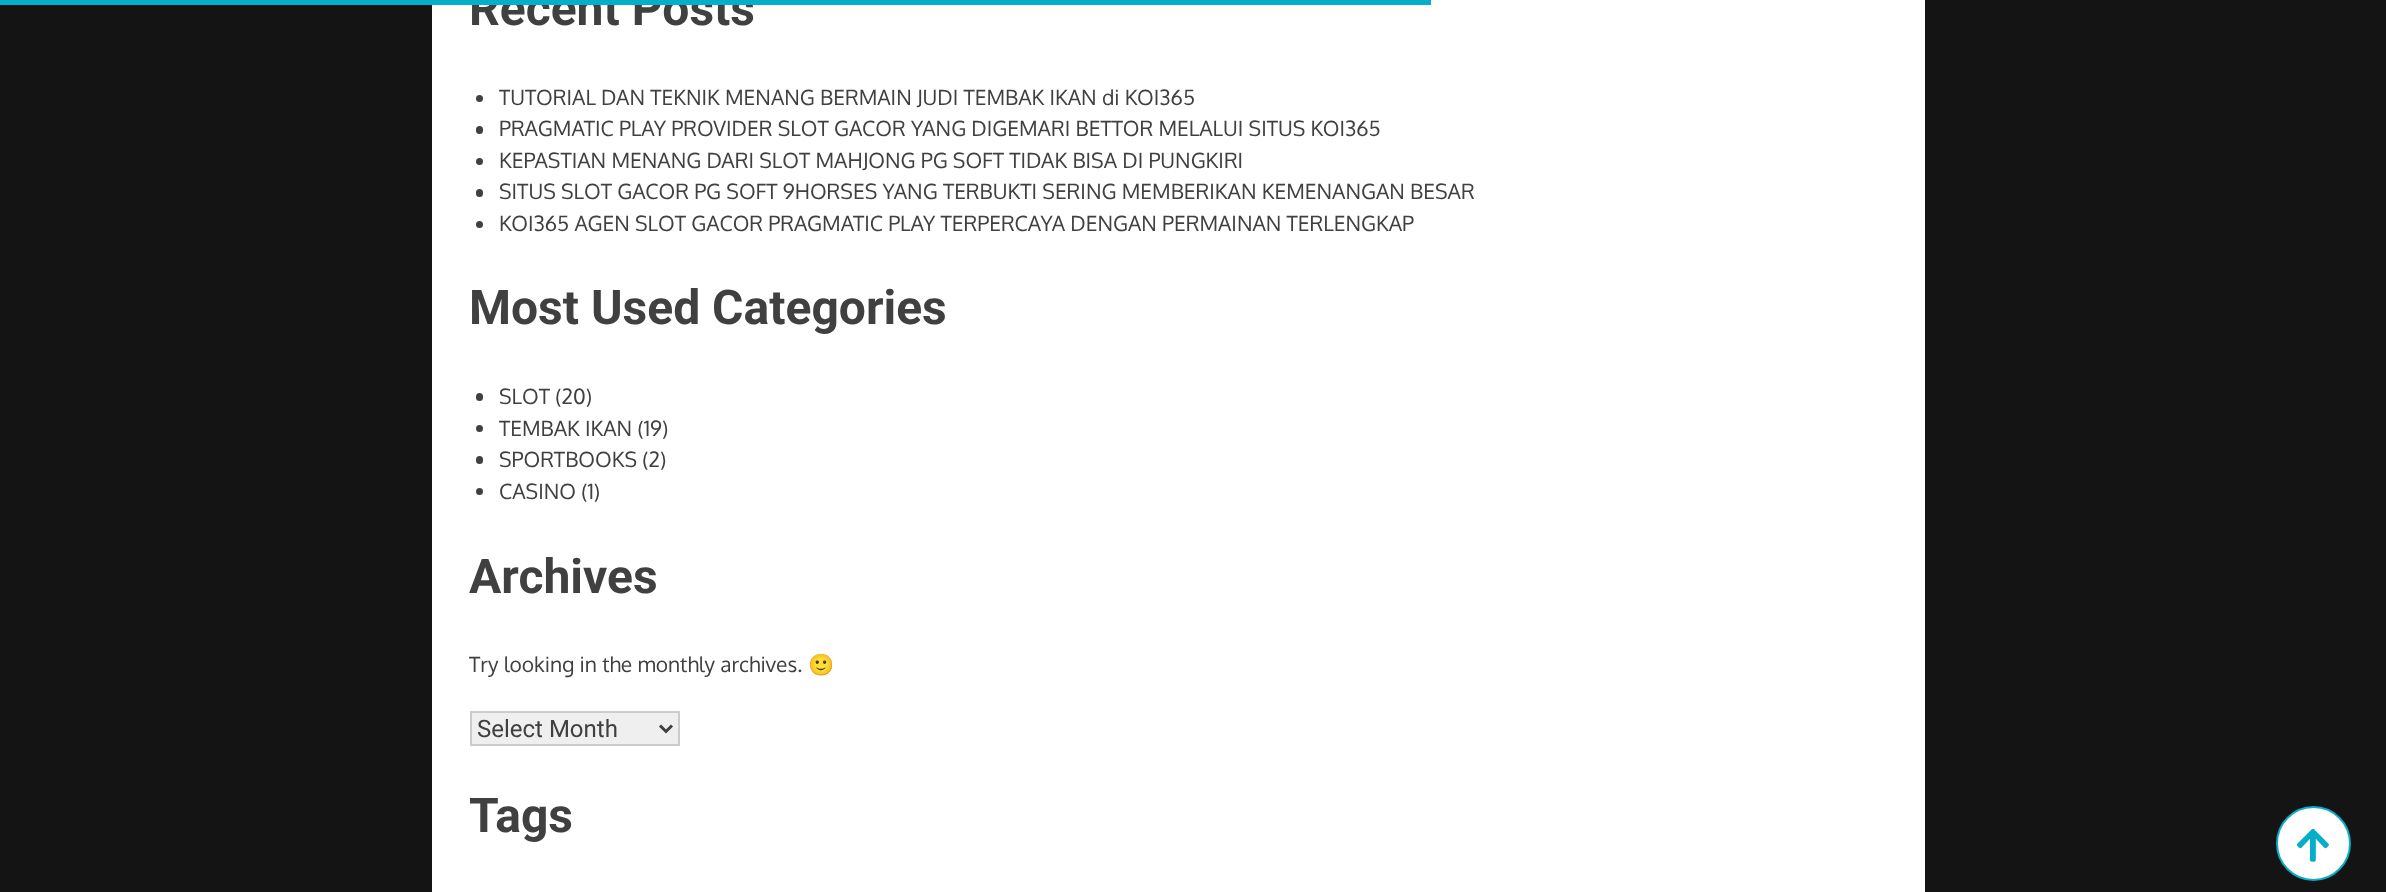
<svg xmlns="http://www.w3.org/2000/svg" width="2386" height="892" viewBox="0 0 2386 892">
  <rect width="100%" height="100%" fill="rgb(20,20,20)"/>
  <rect x="432" y="0" width="1493" height="892" fill="rgb(255,255,255)"/>
  <text x="469" y="25" font-family="Roboto" font-size="48" font-weight="bold" fill="rgb(64,64,64)">Recent Posts</text>
  <rect x="0" y="0" width="1431" height="5" fill="rgb(6,174,201)"/>
  <circle cx="479.5" cy="98.5" r="3.5" fill="rgb(64,64,64)"/>
  <text x="499" y="105" font-family="Oxygen" font-size="21" fill="rgb(64,64,64)">TUTORIAL DAN TEKNIK MENANG BERMAIN JUDI TEMBAK IKAN di KOI365</text>
  <rect x="476" y="126" width="7" height="8" rx="3.5" fill="rgb(64,64,64)"/>
  <text x="499" y="136" font-family="Oxygen" font-size="21" fill="rgb(64,64,64)">PRAGMATIC PLAY PROVIDER SLOT GACOR YANG DIGEMARI BETTOR MELALUI SITUS KOI365</text>
  <circle cx="479.5" cy="161.5" r="3.5" fill="rgb(64,64,64)"/>
  <text x="499" y="168" font-family="Oxygen" font-size="21" fill="rgb(64,64,64)">KEPASTIAN MENANG DARI SLOT MAHJONG PG SOFT TIDAK BISA DI PUNGKIRI</text>
  <rect x="476" y="189" width="7" height="8" rx="3.5" fill="rgb(64,64,64)"/>
  <text x="499" y="199" font-family="Oxygen" font-size="21" fill="rgb(64,64,64)">SITUS SLOT GACOR PG SOFT 9HORSES YANG TERBUKTI SERING MEMBERIKAN KEMENANGAN BESAR</text>
  <circle cx="479.5" cy="224.5" r="3.5" fill="rgb(64,64,64)"/>
  <text x="499" y="231" font-family="Oxygen" font-size="21" fill="rgb(64,64,64)">KOI365 AGEN SLOT GACOR PRAGMATIC PLAY TERPERCAYA DENGAN PERMAINAN TERLENGKAP</text>
  <text x="469" y="324" font-family="Roboto" font-size="48" font-weight="bold" fill="rgb(64,64,64)">Most Used Categories</text>
  <rect x="476" y="393" width="7" height="8" rx="3.5" fill="rgb(64,64,64)"/>
  <text x="499" y="404" font-family="Oxygen" font-size="21" fill="rgb(64,64,64)">SLOT (20)</text>
  <circle cx="479.5" cy="428.5" r="3.5" fill="rgb(64,64,64)"/>
  <text x="499" y="436" font-family="Oxygen" font-size="21" fill="rgb(64,64,64)">TEMBAK IKAN (19)</text>
  <rect x="476" y="456" width="7" height="8" rx="3.5" fill="rgb(64,64,64)"/>
  <text x="499" y="467" font-family="Oxygen" font-size="21" fill="rgb(64,64,64)">SPORTBOOKS (2)</text>
  <circle cx="479.5" cy="491.5" r="3.5" fill="rgb(64,64,64)"/>
  <text x="499" y="499" font-family="Oxygen" font-size="21" fill="rgb(64,64,64)">CASINO (1)</text>
  <text x="469" y="593" font-family="Roboto" font-size="48" font-weight="bold" fill="rgb(64,64,64)">Archives</text>
  <text x="469" y="672" font-family="Oxygen" font-size="21" fill="rgb(64,64,64)">Try looking in the monthly archives.</text>
  <text x="808" y="672" font-family="Noto Color Emoji" font-size="21" fill="rgb(64,64,64)">🙂</text>
  <rect x="471" y="712" width="208" height="33" fill="rgb(239,239,239)" stroke="rgb(204,204,204)" stroke-width="2"/>
  <path d="M660 725.5L666 731.5L672 725.5" fill="none" stroke="rgb(64,64,64)" stroke-width="3"/>
  <text x="477" y="737" font-family="Roboto" font-size="24" fill="rgb(64,64,64)">Select Month</text>
  <text x="469" y="832" font-family="Roboto" font-size="48" font-weight="bold" fill="rgb(64,64,64)">Tags</text>
  <circle cx="2313.5" cy="843.5" r="36.5" fill="rgb(255,255,255)" stroke="rgb(6,174,201)" stroke-width="2"/>
  <image x="2296" y="828" width="33" height="34" href="pic1.png"/>
</svg>
